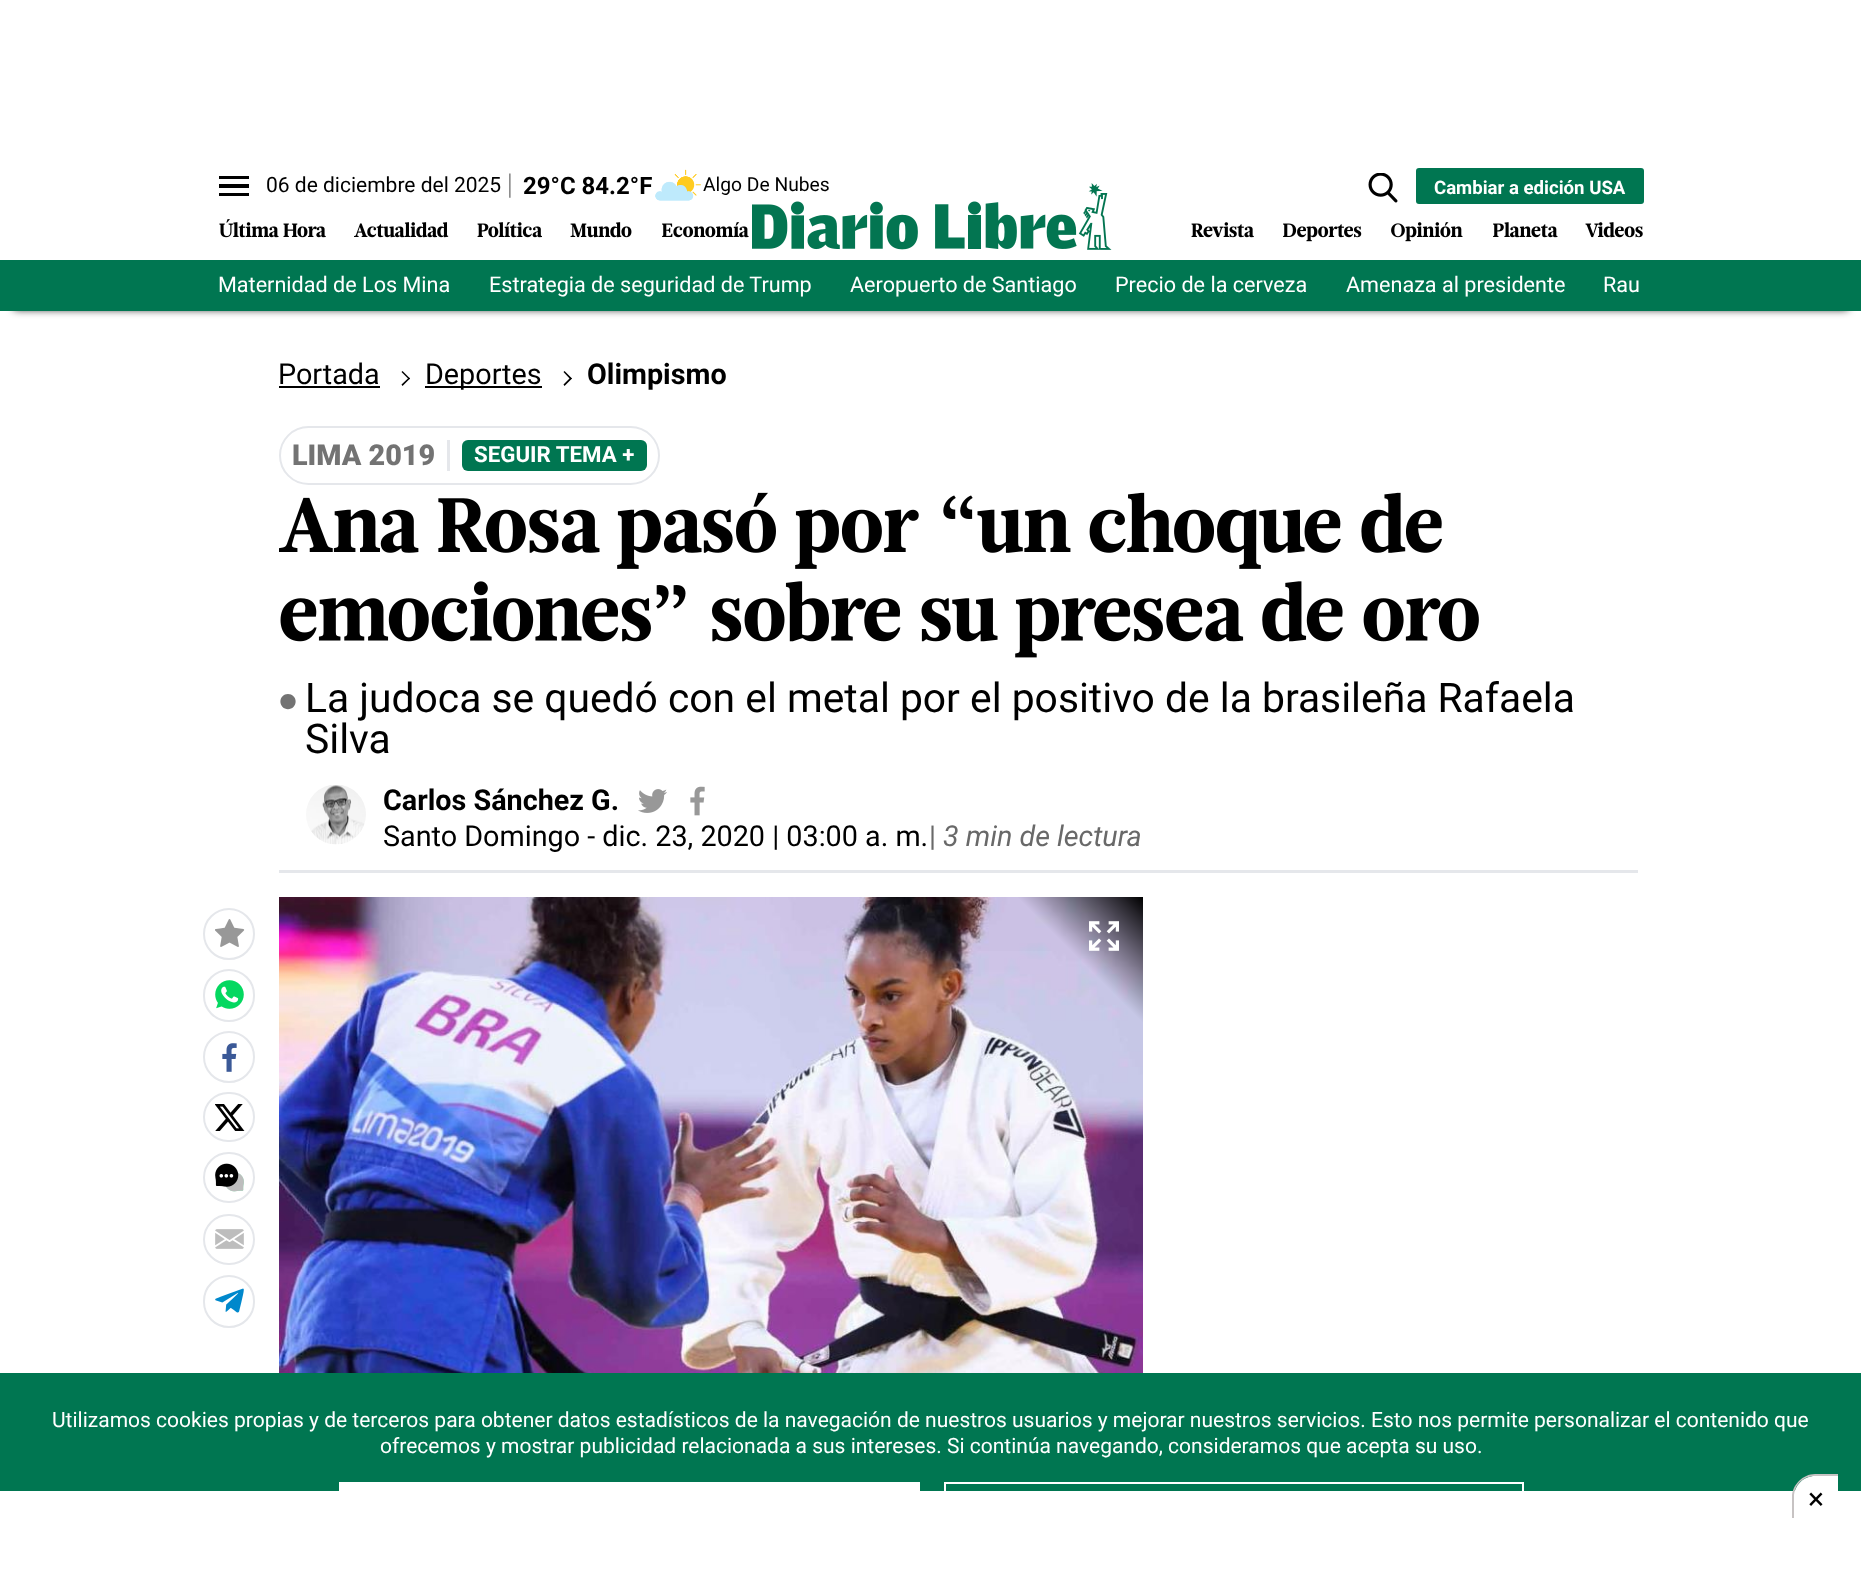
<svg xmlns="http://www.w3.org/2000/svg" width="1861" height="1570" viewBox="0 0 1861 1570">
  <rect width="100%" height="100%" fill="rgb(255,255,255)"/>
  <rect x="14" y="179" width="1834" height="130" fill="rgb(0,0,0)" filter="blur(4.5px)"/>
  <rect x="4" y="169" width="1854" height="91" fill="rgb(255,255,255)"/>
  <rect x="219" y="176" width="30" height="3" fill="rgb(0,0,0)"/>
  <text x="266" y="192" font-family="Roboto" font-size="21" fill="rgb(0,0,0)">06 de diciembre del 2025</text>
  <text x="507" y="194" font-family="Roboto" font-size="28.75" font-weight="100" fill="rgb(0,0,0)">|</text>
  <text x="523" y="194" font-family="Roboto" font-size="24" font-weight="bold" fill="rgb(0,0,0)">29°C 84.2°F</text>
  <image x="655" y="169" width="46" height="32" href="pic1.png"/>
  <image x="752" y="183" width="360" height="67" href="pic7.png"/>
  <text x="703" y="191" font-family="Roboto" font-size="19.25" fill="rgb(0,0,0)">Algo De Nubes</text>
  <rect x="219" y="184" width="30" height="4" fill="rgb(0,0,0)"/>
  <rect x="219" y="193" width="30" height="3" fill="rgb(0,0,0)"/>
  <image x="219" y="219" width="107" height="19" href="pic2.png"/>
  <image x="354" y="222" width="95" height="16" href="pic3.png"/>
  <image x="477" y="222" width="65" height="16" href="pic4.png"/>
  <image x="570" y="222" width="62" height="16" href="pic5.png"/>
  <image x="662" y="222" width="87" height="16" href="pic6.png"/>
  <image x="1368" y="173" width="30" height="30" href="pic8.png"/>
  <rect x="1416" y="168" width="228" height="36" rx="3" fill="rgb(0,118,81)"/>
  <text x="1434" y="194" font-family="Roboto" font-size="18.6" font-weight="bold" fill="rgb(255,255,255)">Cambiar a edición USA</text>
  <image x="1191" y="222" width="63" height="16" href="pic9.png"/>
  <image x="1283" y="223" width="79" height="19" href="pic10.png"/>
  <image x="1391" y="222" width="72" height="20" href="pic11.png"/>
  <image x="1493" y="222" width="65" height="16" href="pic12.png"/>
  <image x="1585" y="222" width="58" height="16" href="pic13.png"/>
  <rect x="0" y="260" width="1861" height="51" fill="rgb(0,118,81)"/>
  <g font-family="Roboto" font-size="21.6" fill="rgb(255,255,255)">
    <text x="218" y="292">Maternidad de Los Mina</text>
    <text x="489" y="292">Estrategia de seguridad de Trump</text>
    <text x="850" y="292">Aeropuerto de Santiago</text>
    <text x="1115" y="292">Precio de la cerveza</text>
    <text x="1346" y="292">Amenaza al presidente</text>
    <text x="1603" y="292">Rau</text>
  </g>
  <text x="278" y="384" font-family="Roboto" font-size="28.75" fill="rgb(0,0,0)">Portada</text>
  <rect x="279" y="386" width="101" height="2" fill="rgb(0,0,0)"/>
  <path d="M401.5 372L402.5 371L410 378.5L409 379.5Z" fill="rgb(0,0,0)"/>
  <path d="M401.5 384.5L409 377.5L410 378.5L402.5 386Z" fill="rgb(0,0,0)"/>
  <rect x="425" y="386" width="117" height="2" fill="rgb(0,0,0)"/>
  <text x="425" y="384" font-family="Roboto" font-size="28.75" fill="rgb(0,0,0)">Deportes</text>
  <path d="M563.5 372L564.5 371L572 378.5L570.5 379.5Z" fill="rgb(0,0,0)"/>
  <path d="M563.5 384.5L570.5 377.5L572 378.5L564.5 386Z" fill="rgb(0,0,0)"/>
  <text x="587" y="384" font-family="Roboto" font-size="28.75" font-weight="bold" fill="rgb(0,0,0)">Olimpismo</text>
  <rect x="280" y="427" width="379" height="57" rx="28.5" fill="none" stroke="rgb(229,231,235)" stroke-width="2"/>
  <text x="292" y="465" font-family="Roboto" font-size="28.75" font-weight="900" fill="rgb(115,115,115)">LIMA 2019</text>
  <rect x="447" y="440" width="3" height="31" fill="rgb(229,231,235)"/>
  <rect x="462" y="440" width="185" height="31" rx="6" fill="rgb(0,118,81)"/>
  <text x="474" y="462" font-family="Roboto" font-size="22.25" font-weight="bold" fill="rgb(255,255,255)">SEGUIR TEMA +</text>
  <image x="279" y="492" width="1163" height="77" href="pic14.png"/>
  <image x="280" y="581" width="1199" height="77" href="pic15.png"/>
  <text x="278" y="711" font-family="Carlito" font-size="33" fill="rgb(115,115,115)">●</text>
  <g font-family="Roboto" font-size="40.8" fill="rgb(0,0,0)">
    <text>
      <tspan x="305" y="712">La judoca se quedó con el metal por el positivo de la brasileña Rafaela</tspan>
      <tspan x="305" y="753">Silva</tspan>
    </text>
  </g>
  <rect x="279" y="870" width="1359" height="3" fill="rgb(229,231,235)"/>
  <image x="306" y="785" width="60" height="60" href="pic16.png"/>
  <text x="383" y="810" font-family="Roboto" font-size="28.75" font-weight="bold" fill="rgb(0,0,0)">Carlos Sánchez G.</text>
  <image x="638" y="789" width="29" height="24" href="pic17.png"/>
  <image x="690" y="786" width="15" height="30" href="pic18.png"/>
  <text x="383" y="846" font-family="Roboto" font-size="28.75" fill="rgb(0,0,0)">Santo Domingo - dic. 23, 2020 | 03:00 a. m.</text>
  <text x="929" y="846" font-family="Roboto" font-size="28.75" fill="rgb(105,105,105)">|</text>
  <text x="943" y="846" font-family="Roboto" font-size="28.75" font-style="italic" fill="rgb(105,105,105)">3 min de lectura</text>
  <circle cx="229" cy="934" r="25" fill="none" stroke="rgb(229,231,235)" stroke-width="2"/>
  <image x="215" y="919" width="30" height="28" href="pic19.png"/>
  <rect x="204" y="970" width="50" height="51" rx="25" fill="none" stroke="rgb(229,231,235)" stroke-width="2"/>
  <image x="215" y="980" width="29" height="29" href="pic20.png"/>
  <circle cx="229" cy="1057" r="25" fill="none" stroke="rgb(229,231,235)" stroke-width="2"/>
  <image x="222" y="1043" width="15" height="29" href="pic21.png"/>
  <rect x="204" y="1093" width="50" height="48" rx="24" fill="none" stroke="rgb(229,231,235)" stroke-width="2"/>
  <image x="215" y="1104" width="30" height="27" href="pic22.png"/>
  <rect x="204" y="1153" width="50" height="49" rx="24.5" fill="none" stroke="rgb(229,231,235)" stroke-width="2"/>
  <image x="215" y="1163" width="29" height="29" href="pic23.png"/>
  <rect x="204" y="1215" width="50" height="49" rx="24.5" fill="none" stroke="rgb(229,231,235)" stroke-width="2"/>
  <image x="215" y="1229" width="29" height="20" href="pic24.png"/>
  <rect x="204" y="1276" width="50" height="51" rx="25" fill="none" stroke="rgb(229,231,235)" stroke-width="2"/>
  <image x="215" y="1288" width="29" height="25" href="pic25.png"/>
  <image x="279" y="897" width="864" height="476" href="pic26.png"/>
  <image x="1089" y="921" width="30" height="30" href="pic27.png"/>
  <rect x="0" y="1373" width="1861" height="118" fill="rgb(0,118,81)"/>
  <g font-family="Roboto" font-size="21" fill="rgb(255,255,255)">
    <text x="52" y="1427">Utilizamos cookies propias y de terceros para obtener datos estadísticos de la navegación de nuestros usuarios y mejorar nuestros servicios. Esto nos permite personalizar el contenido que</text>
    <text x="380" y="1453">ofrecemos y mostrar publicidad relacionada a sus intereses. Si continúa navegando, consideramos que acepta su uso.</text>
  </g>
  <rect x="339" y="1482" width="581" height="9" fill="rgb(255,255,255)"/>
  <rect x="945" y="1483" width="578" height="51" fill="none" stroke="rgb(255,255,255)" stroke-width="2"/>
  <path d="M1815 1476H1838V1518H1794V1497C1794 1485.5 1803.5 1476 1815 1476Z" fill="rgb(255,255,255)"/>
  <path d="M1815 1474H1838V1518H1792V1497C1792 1485 1803 1474 1815 1474ZM1815 1476H1838V1518H1794V1497C1794 1485 1803 1476 1815 1476Z" fill="rgb(199,195,195)" fill-rule="evenodd"/>
  <text x="1808" y="1509" font-family="Roboto" font-size="30" fill="rgb(0,0,0)">×</text>
</svg>
